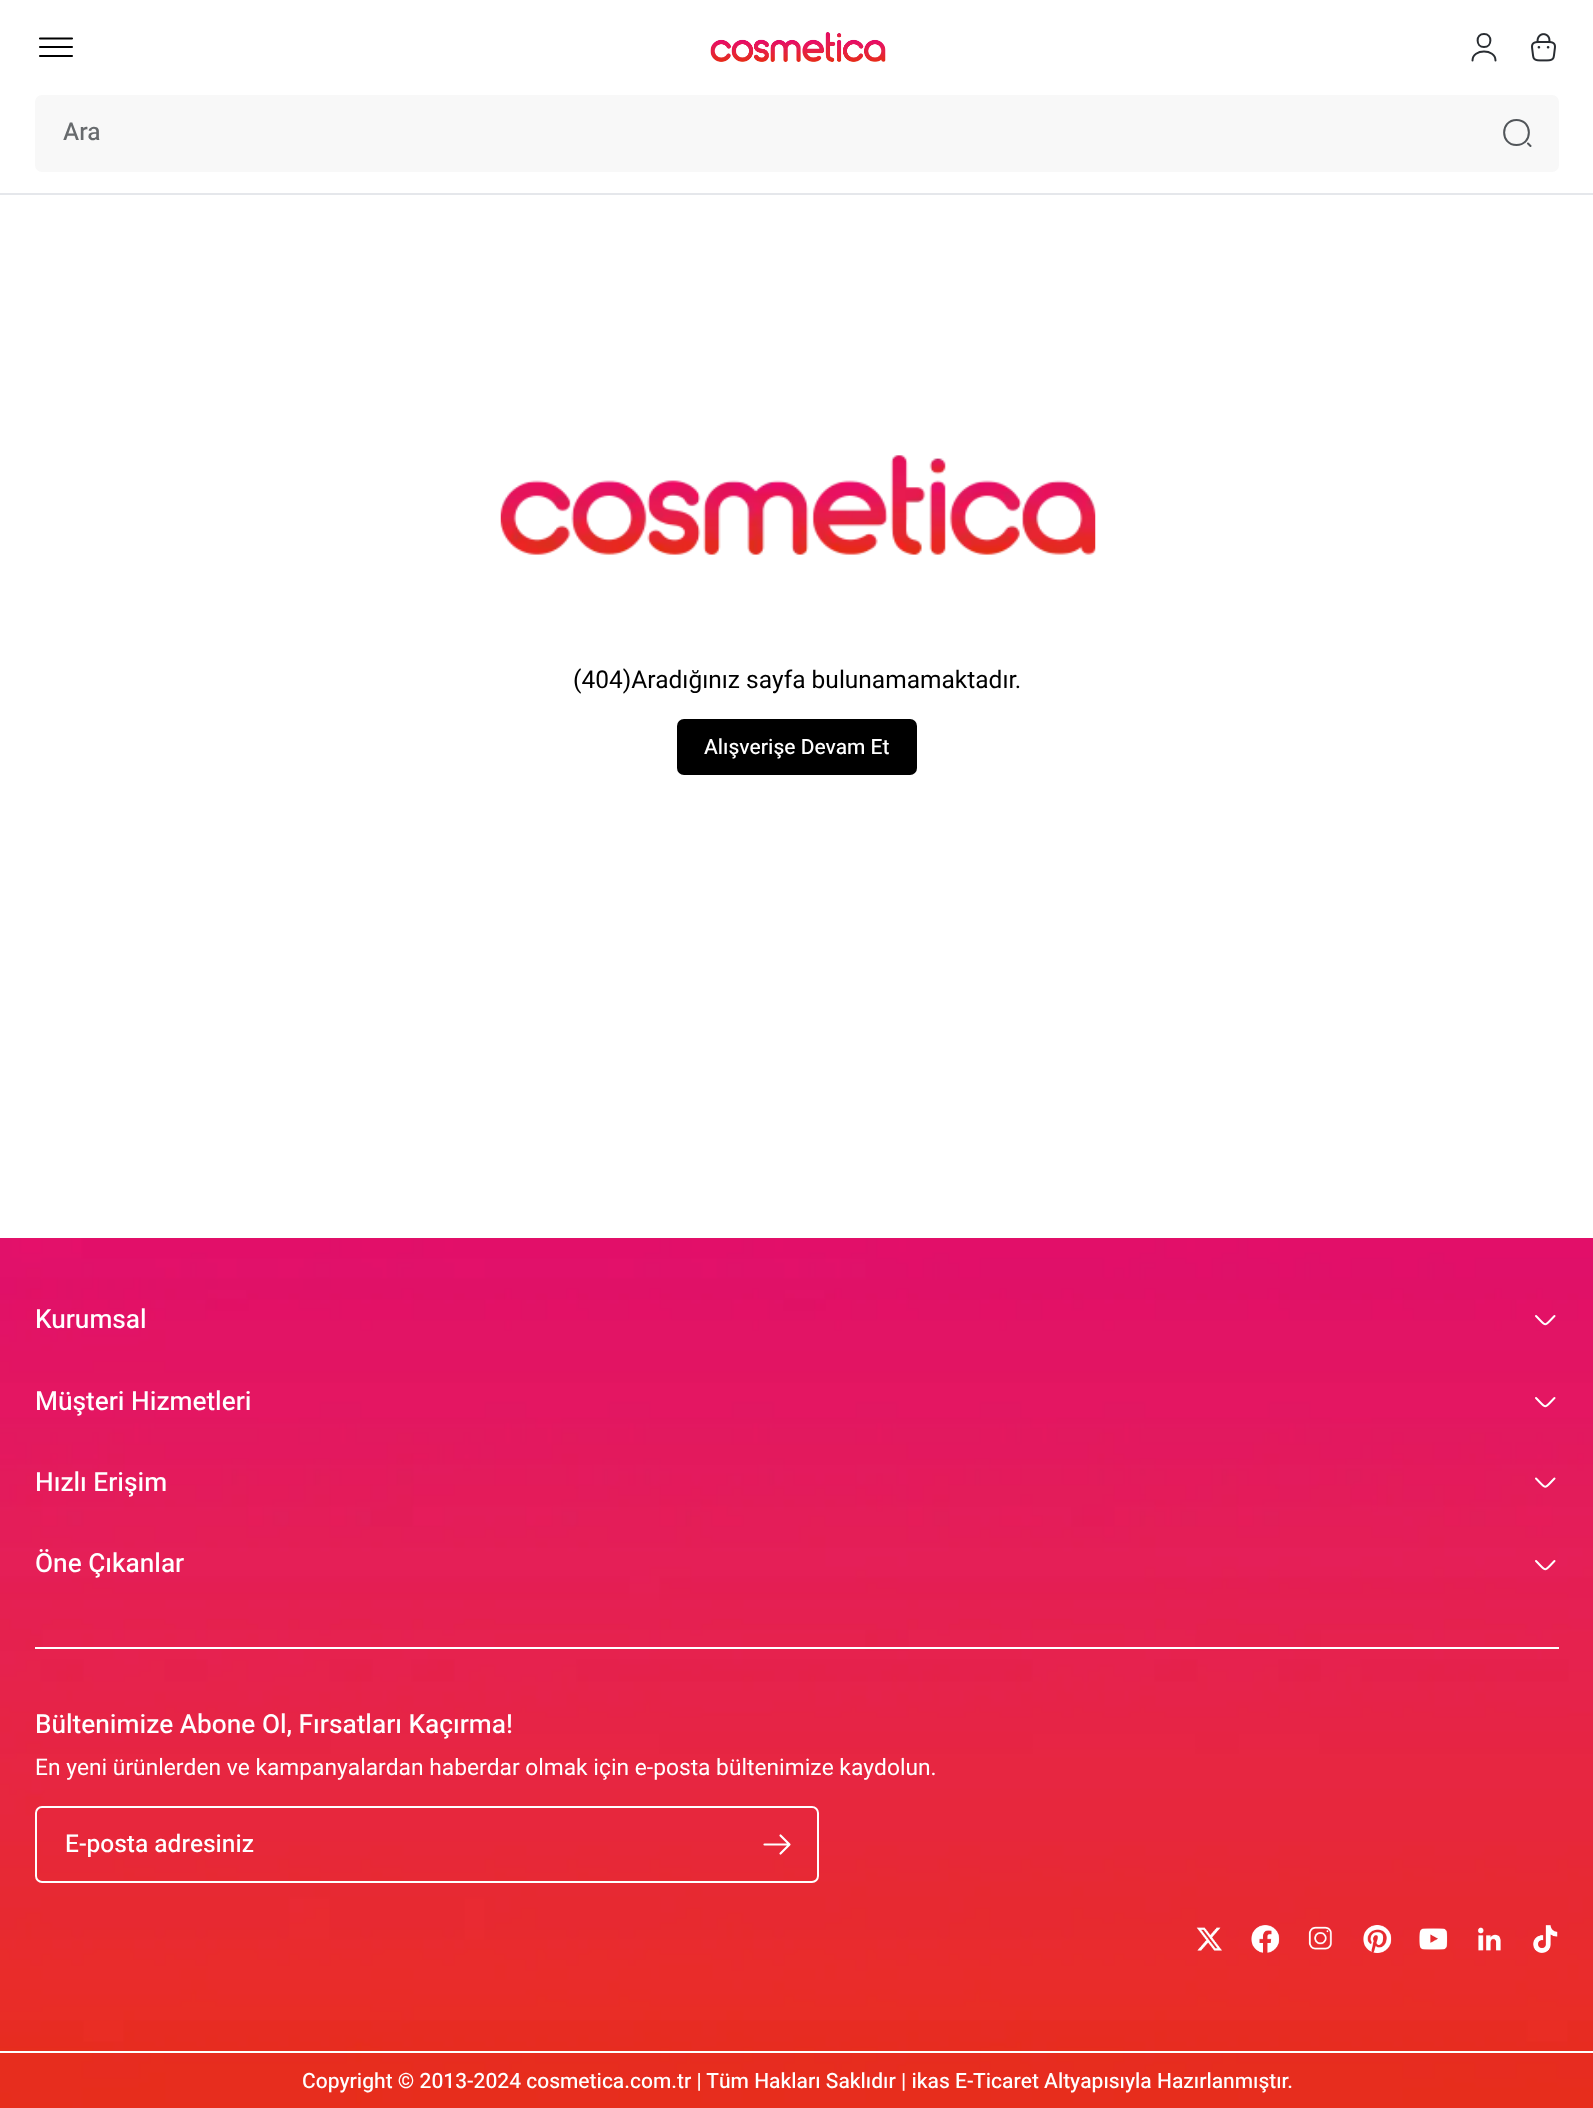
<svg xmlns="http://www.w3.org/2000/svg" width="1593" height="2108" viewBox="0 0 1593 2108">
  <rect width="100%" height="100%" fill="rgb(255,255,255)"/>
  <rect x="0" y="193" width="1593" height="2" fill="rgb(229,231,235)"/>
  <path d="M40 38.5H72M40 47H72M40 56H72" fill="none" stroke="rgb(0,0,0)" stroke-width="2.1" stroke-linecap="round"/>
  <image x="710" y="32" width="176" height="30" href="pic1.png"/>
  <path d="M1484 47C1492.5 47 1492.5 34 1484 34C1475.5 34 1475.5 47 1484 47ZM1495.5 60.5C1495.5 48.5 1472.5 48.5 1472.5 60.5" fill="none" stroke="rgb(41,45,50)" stroke-width="2" stroke-linecap="round" stroke-linejoin="round"/>
  <image x="1531" y="33" width="25" height="29" href="pic2.png"/>
  <rect x="35" y="95" width="1524" height="77" rx="7" fill="rgb(248,248,248)"/>
  <text x="63" y="140" font-family="Heebo" font-size="24.5" font-weight="500" fill="rgb(103,106,109)">Ara</text>
  <path d="M1516.5 145C1533 145 1533 120 1516.5 120C1500 120 1500 145 1516.5 145ZM1530.5 146L1528 143.5" fill="none" stroke="rgb(82,86,90)" stroke-width="2" stroke-linecap="round" stroke-linejoin="round"/>
  <image x="500" y="455" width="596" height="100" href="pic3.png"/>
  <text x="573" y="688" font-family="Heebo" font-size="24.5" fill="rgb(0,0,0)">(404)Aradığınız sayfa bulunamamaktadır.</text>
  <rect x="677" y="719" width="240" height="56" rx="7" fill="rgb(0,0,0)"/>
  <text x="704" y="754" font-family="Heebo" font-size="21" font-weight="500" fill="rgb(255,255,255)">Alışverişe Devam Et</text>
  <image x="0" y="1238" width="1593" height="870" href="pic4.png"/>
  <text x="35" y="1328" font-family="Heebo" font-size="26.25" font-weight="500" fill="rgb(255,255,255)">Kurumsal</text>
  <path d="M1554.5 1316C1543.5 1327 1547 1327 1536 1316" fill="none" stroke="rgb(255,255,255)" stroke-width="2" stroke-linecap="round" stroke-linejoin="round"/>
  <text x="35" y="1410" font-family="Heebo" font-size="26.25" font-weight="500" fill="rgb(255,255,255)">Müşteri Hizmetleri</text>
  <path d="M1554.5 1398C1543.5 1409 1547 1409 1536 1398" fill="none" stroke="rgb(255,255,255)" stroke-width="2" stroke-linecap="round" stroke-linejoin="round"/>
  <text x="35" y="1491" font-family="Heebo" font-size="26.25" font-weight="500" fill="rgb(255,255,255)">Hızlı Erişim</text>
  <path d="M1554.5 1478.5C1543.5 1489.5 1547 1489.5 1536 1478.5" fill="none" stroke="rgb(255,255,255)" stroke-width="2" stroke-linecap="round" stroke-linejoin="round"/>
  <text x="35" y="1572" font-family="Heebo" font-size="26.25" font-weight="500" fill="rgb(255,255,255)">Öne Çıkanlar</text>
  <path d="M1554.5 1561C1543.5 1572 1547 1572 1536 1561" fill="none" stroke="rgb(255,255,255)" stroke-width="2" stroke-linecap="round" stroke-linejoin="round"/>
  <rect x="35" y="1647" width="1524" height="2" fill="rgb(255,255,255)"/>
  <text x="35" y="1733" font-family="Heebo" font-size="26.25" font-weight="500" fill="rgb(255,255,255)">Bültenimize Abone Ol, Fırsatları Kaçırma!</text>
  <text x="35" y="1775" font-family="Heebo" font-size="22.75" fill="rgb(255,255,255)">En yeni ürünlerden ve kampanyalardan haberdar olmak için e-posta bültenimize kaydolun.</text>
  <rect x="36" y="1807" width="782" height="75" rx="6" fill="none" stroke="rgb(255,255,255)" stroke-width="2"/>
  <text x="65" y="1852" font-family="Heebo" font-size="24.5" font-weight="500" fill="rgb(255,255,255)">E-posta adresiniz</text>
  <path d="M780.5 1835.5L789.5 1844.5L780.5 1853.5M764.5 1844.5H789" fill="none" stroke="rgb(255,255,255)" stroke-width="2.2" stroke-linecap="round" stroke-linejoin="round"/>
  <image x="1196" y="1927" width="26" height="24" href="pic5.png"/>
  <image x="1251" y="1925" width="29" height="28" href="pic6.png"/>
  <image x="1308" y="1926" width="24" height="24" href="pic7.png"/>
  <image x="1363" y="1925" width="29" height="28" href="pic8.png"/>
  <image x="1419" y="1928" width="29" height="22" href="pic9.png"/>
  <image x="1477" y="1927" width="24" height="24" href="pic10.png"/>
  <image x="1533" y="1925" width="25" height="28" href="pic11.png"/>
  <rect x="0" y="2051" width="1593" height="2" fill="rgb(255,255,255)"/>
  <text x="302" y="2088" font-family="Heebo" font-size="21" font-weight="500" fill="rgb(255,255,255)">Copyright © 2013-2024 cosmetica.com.tr | Tüm Hakları Saklıdır | ikas E-Ticaret Altyapısıyla Hazırlanmıştır.</text>
</svg>
